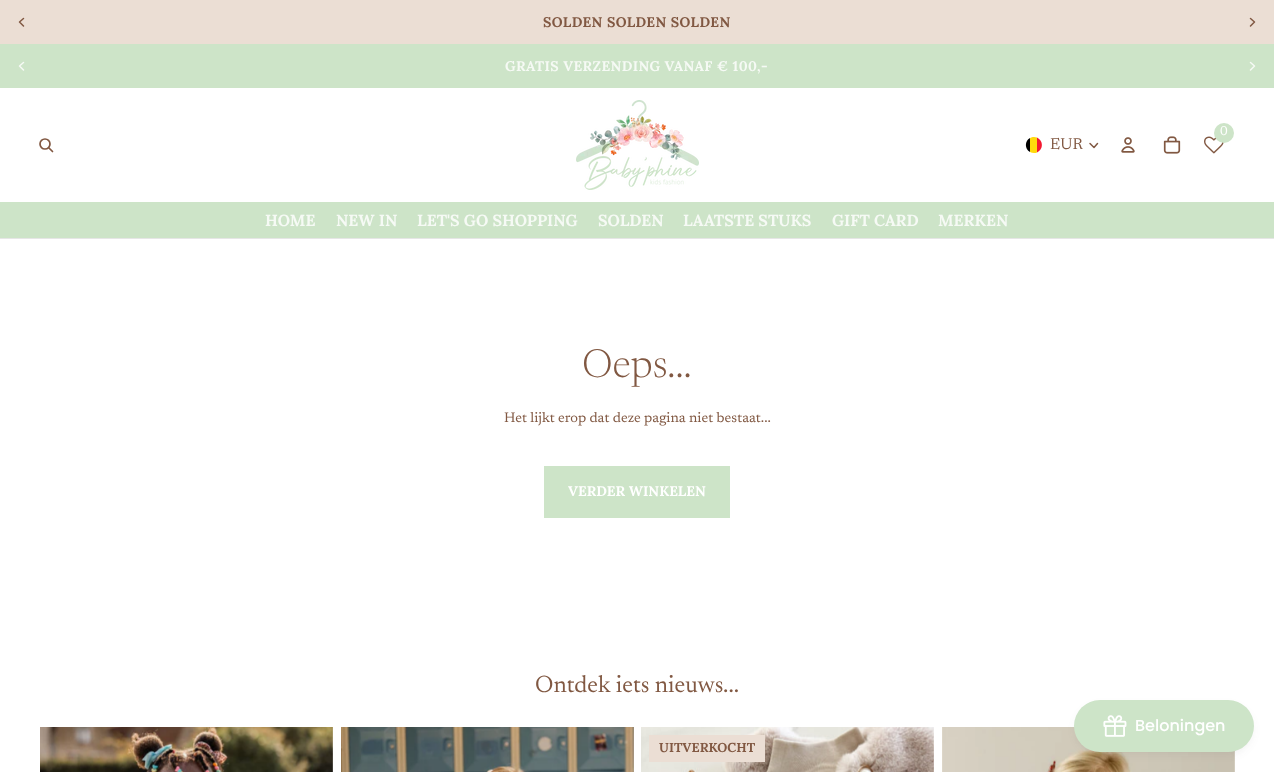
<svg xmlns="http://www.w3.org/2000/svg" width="1274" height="772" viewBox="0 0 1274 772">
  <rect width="100%" height="100%" fill="rgb(255,255,255)"/>
  <rect x="0" y="0" width="1274" height="44" fill="rgb(235,222,212)"/>
  <path d="M23.5 18.5L19.5 22L23.5 26" fill="none" stroke="rgb(129,88,66)" stroke-width="1.5" stroke-linecap="round" stroke-linejoin="round"/>
  <path d="M1250.5 18.5L1254.5 22L1250.5 26" fill="none" stroke="rgb(129,88,66)" stroke-width="1.5" stroke-linecap="round" stroke-linejoin="round"/>
  <text x="543" y="27" font-family="Lora" font-size="14" font-weight="bold" letter-spacing="0.4" fill="rgb(129,88,66)">SOLDEN SOLDEN SOLDEN</text>
  <rect x="0" y="44" width="1274" height="44" fill="rgb(205,228,200)"/>
  <text x="505" y="71" font-family="Lora" font-size="14" font-weight="bold" letter-spacing="0.4" fill="rgb(246,250,245)">GRATIS VERZENDING VANAF € 100,-</text>
  <path d="M23.5 62.5L19.5 66L23.5 70" fill="none" stroke="rgb(246,250,245)" stroke-width="1.5" stroke-linecap="round" stroke-linejoin="round"/>
  <path d="M1250.5 62.5L1254.5 66L1250.5 70" fill="none" stroke="rgb(246,250,245)" stroke-width="1.5" stroke-linecap="round" stroke-linejoin="round"/>
  <circle cx="45" cy="144" r="5" fill="none" stroke="rgb(129,88,66)" stroke-width="1.7"/>
  <path d="M49 148L52.5 151.5" fill="none" stroke="rgb(129,88,66)" stroke-width="1.7" stroke-linecap="round" stroke-linejoin="round"/>
  <image x="576" y="100" width="123" height="90" href="pic1.png"/>
  <image x="1204" y="136" width="20" height="18" href="pic2.png"/>
  <circle cx="1224" cy="133" r="10" fill="rgb(205,228,200)"/>
  <text x="1220" y="135" font-family="'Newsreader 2'" font-size="13" fill="rgb(255,255,255)">0</text>
  <image x="1121" y="137" width="14" height="16" href="pic3.png"/>
  <image x="1163" y="136" width="18" height="18" href="pic4.png"/>
  <path d="M1030 138V152C1024.5 149 1024.5 141 1030 138Z" fill="rgb(0,0,0)"/>
  <path d="M1034 137C1032.5 137 1031 137.5 1030 138V152C1032 153 1034.5 153.5 1037 152.5V137.5Z" fill="rgb(255,217,12)"/>
  <path d="M1037 137.5C1043.5 140.5 1043.5 149.5 1037 152.5Z" fill="rgb(243,24,48)"/>
  <text x="1050" y="149" font-family="Newsreader" font-size="16" fill="rgb(129,88,66)">EUR</text>
  <path d="M1097.5 143.5L1094 147.5L1090 143.5" fill="none" stroke="rgb(129,88,66)" stroke-width="1.5" stroke-linecap="round" stroke-linejoin="round"/>
  <rect x="0" y="202" width="1274" height="36" fill="rgb(205,228,200)"/>
  <rect x="0" y="238" width="1274" height="1" fill="rgb(230,230,230)"/>
  <g font-family="Lora" font-size="16" font-weight="bold" fill="rgb(246,250,245)">
    <text x="265" y="226">HOME</text>
    <text x="336" y="226">NEW IN</text>
    <text x="417" y="226">LET'S GO SHOPPING</text>
    <text x="598" y="226">SOLDEN</text>
    <text x="683" y="226">LAATSTE STUKS</text>
    <text x="832" y="226">GIFT CARD</text>
    <text x="938" y="226">MERKEN</text>
  </g>
  <text x="582" y="377" font-family="Newsreader" font-size="40" font-weight="300" fill="rgb(129,88,66)">Oeps...</text>
  <text x="504" y="422" font-family="'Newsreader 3'" font-size="14" fill="rgb(129,88,66)">Het lijkt erop dat deze pagina niet bestaat...</text>
  <rect x="544" y="466" width="186" height="52" fill="rgb(205,228,200)"/>
  <text x="568" y="496" font-family="Lora" font-size="14" font-weight="bold" fill="rgb(255,255,255)">VERDER WINKELEN</text>
  <text x="535" y="692" font-family="'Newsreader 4'" font-size="24" fill="rgb(129,88,66)">Ontdek iets nieuws...</text>
  <image x="40" y="727" width="293" height="45" href="pic5.png"/>
  <image x="341" y="727" width="293" height="45" href="pic6.png"/>
  <image x="641" y="727" width="293" height="45" href="pic7.png"/>
  <rect x="649" y="735" width="116" height="27" fill="rgb(235,222,212)"/>
  <text x="659" y="752" font-family="Lora" font-size="13" font-weight="bold" fill="rgb(129,88,66)">UITVERKOCHT</text>
  <image x="942" y="727" width="293" height="45" href="pic8.png"/>
  <rect x="1076" y="706" width="176" height="48" rx="24" fill="rgba(68,68,68,0.08)" filter="blur(4px)"/>
  <rect x="1074" y="700" width="180" height="52" rx="26" fill="rgb(205,228,200)"/>
  <image x="1103" y="715" width="24" height="22" href="pic9.png"/>
  <text x="1135" y="731" font-family="Poppins" font-size="16" font-weight="500" fill="rgb(255,255,255)">Beloningen</text>
</svg>
